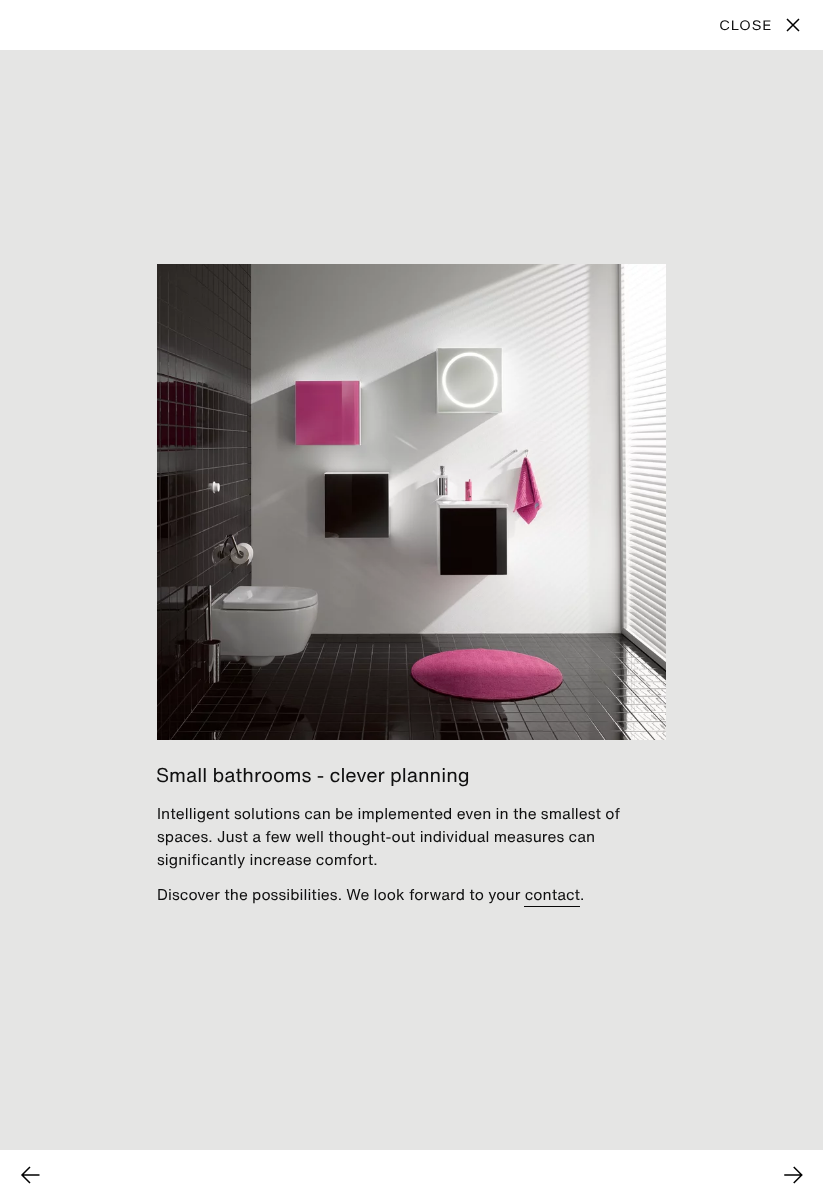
<svg xmlns="http://www.w3.org/2000/svg" width="823" height="1200" viewBox="0 0 823 1200">
  <rect width="100%" height="100%" fill="rgb(229,229,228)"/>
  <rect x="0" y="0" width="823" height="50" fill="rgb(255,255,255)"/>
  <text x="719" y="30" font-family="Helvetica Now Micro" font-size="13" letter-spacing="0.5" fill="rgb(16,16,16)">CLOSE</text>
  <image x="786" y="18" width="14" height="14" href="pic1.png"/>
  <image x="157" y="264" width="509" height="476" href="pic2.png"/>
  <text x="156" y="782" font-family="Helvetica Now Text" font-size="19.6" fill="rgb(16,16,16)">Small bathrooms - clever planning</text>
  <g font-family="Helvetica Now Text" font-size="15.35" letter-spacing="0.08" fill="rgb(16,16,16)">
    <text>
      <tspan x="157" y="819">Intelligent solutions can be implemented even in the smallest of</tspan>
      <tspan x="157" y="842">spaces. Just a few well thought-out individual measures can</tspan>
      <tspan x="157" y="865">significantly increase comfort.</tspan>
    </text>
    <text x="157" y="900">Discover the possibilities. We look forward to your contact</text>
    <text x="580" y="900">.</text>
  </g>
  <rect x="524" y="906" width="56" height="1" fill="rgb(10,10,10)"/>
  <rect x="0" y="1150" width="823" height="50" fill="rgb(255,255,255)"/>
  <image x="21" y="1166" width="19" height="18" href="pic3.png"/>
  <image x="784" y="1166" width="19" height="18" href="pic4.png"/>
</svg>
